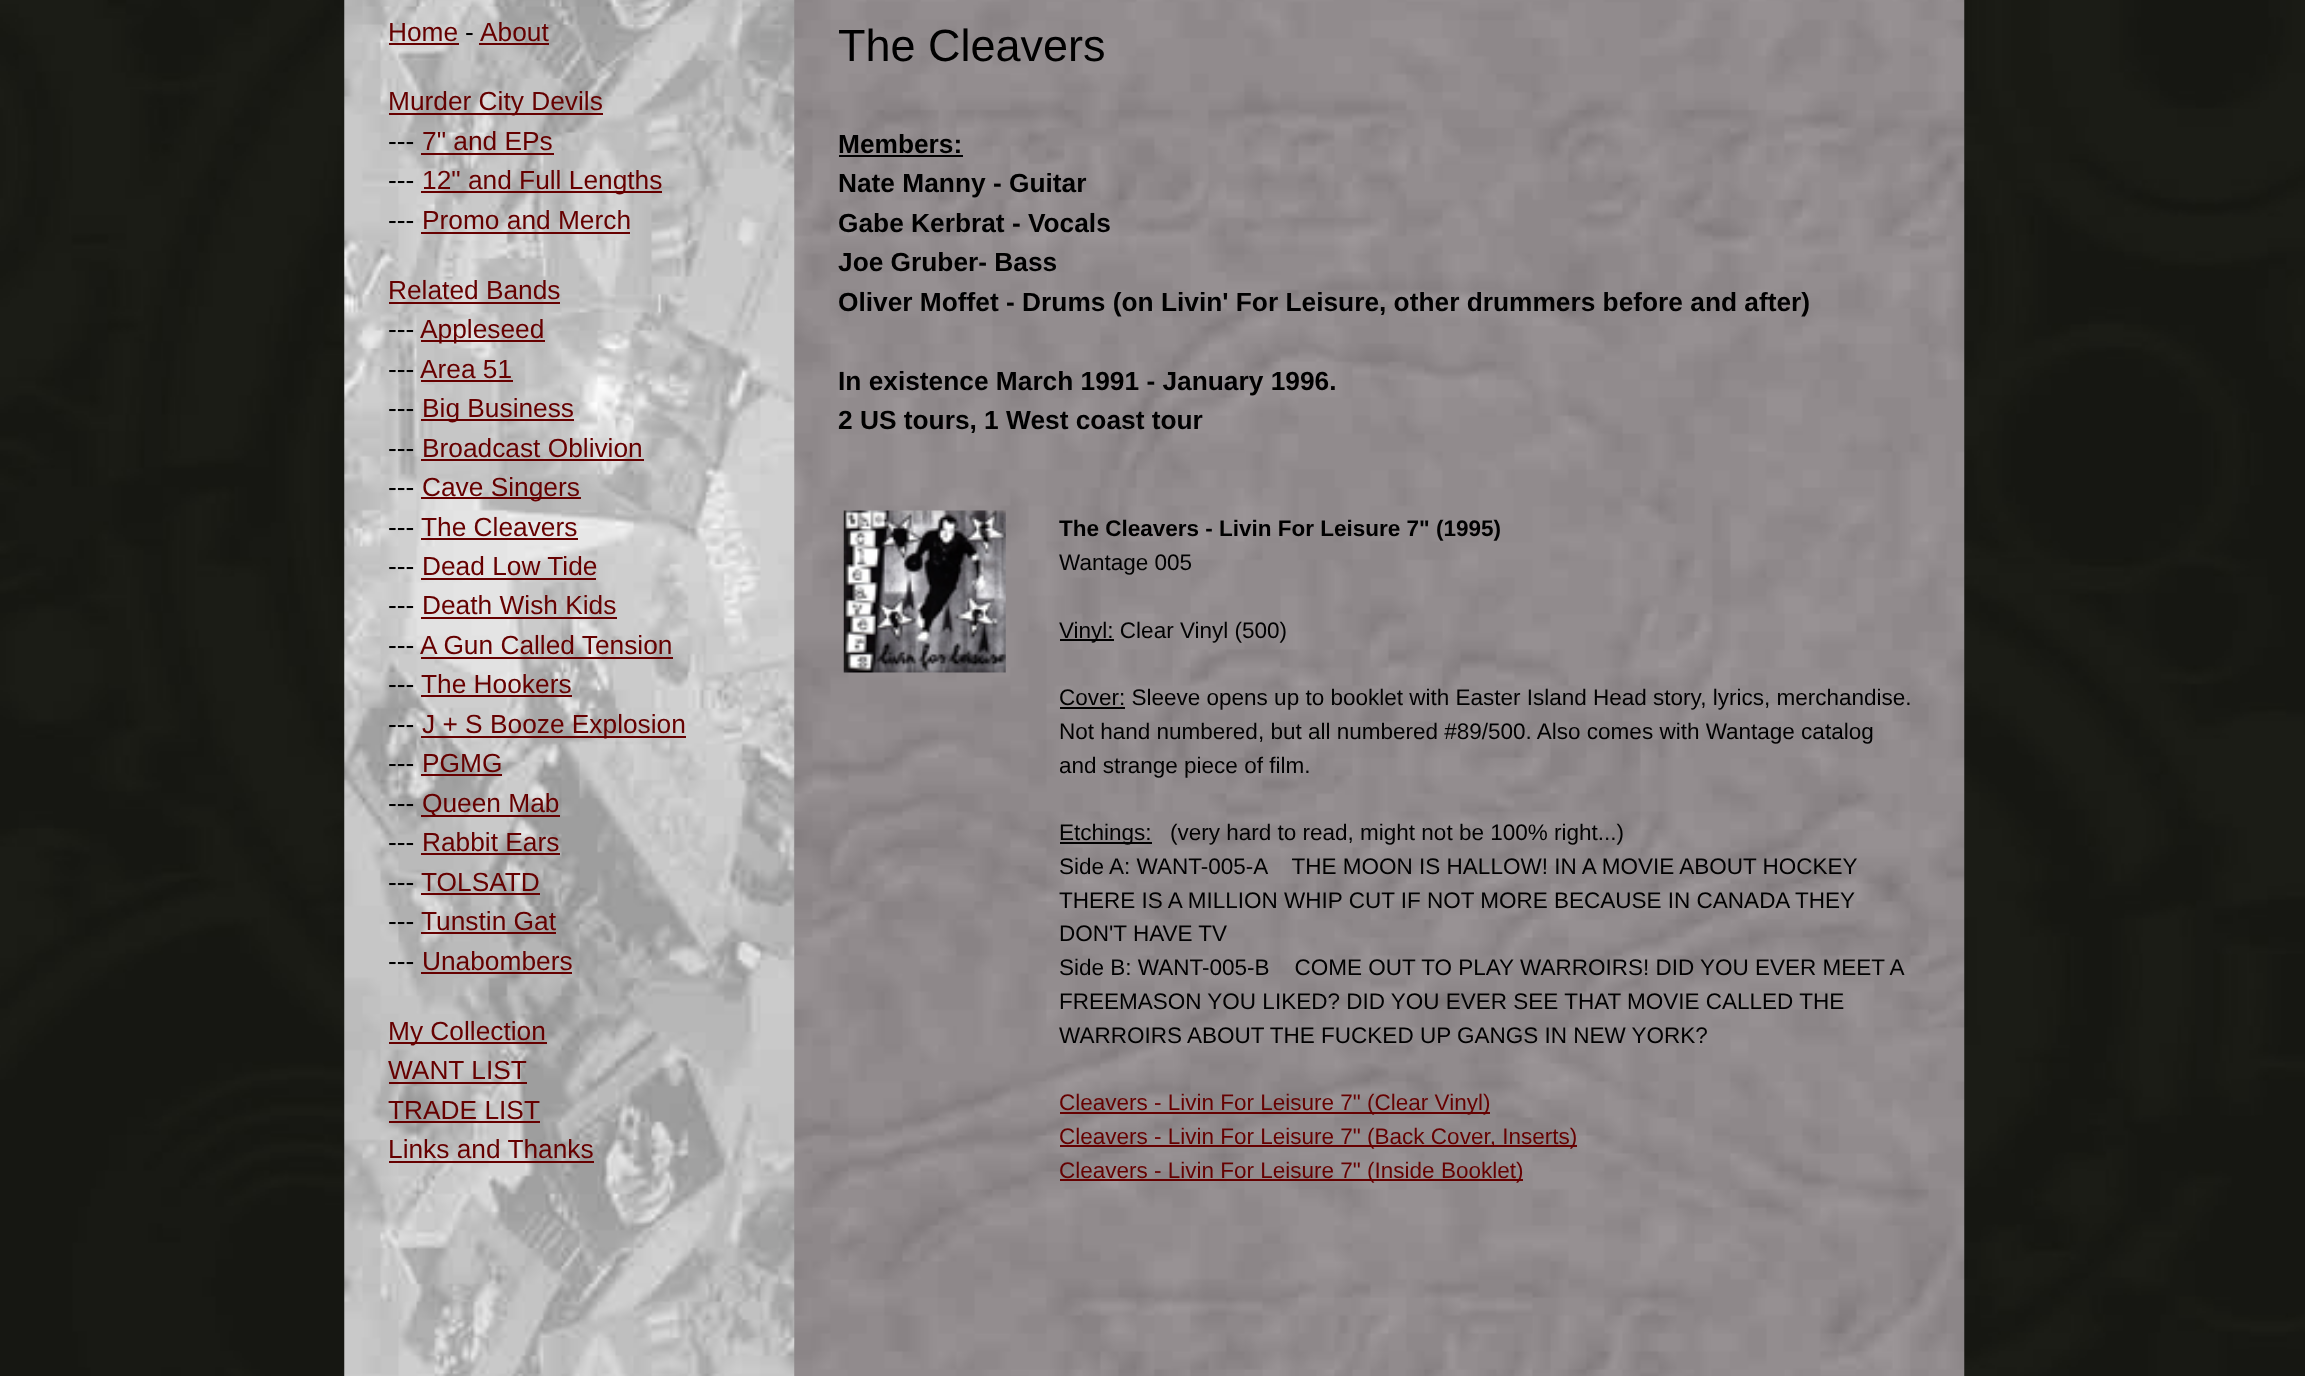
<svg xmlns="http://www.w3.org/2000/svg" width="2305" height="1376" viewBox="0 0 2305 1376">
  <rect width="100%" height="100%" fill="rgb(255,255,255)"/>
  <image x="0" y="0" width="2305" height="1376" href="pic1.png"/>
  <image x="344" y="0" width="451" height="1376" href="pic2.png"/>
  <text x="388" y="41" font-family="Liberation Sans" font-size="26.3" fill="rgb(102,0,0)">Home</text>
  <rect x="389" y="43" width="70" height="2" fill="rgb(102,0,0)"/>
  <text x="465" y="41" font-family="Liberation Sans" font-size="26.3" fill="rgb(0,0,0)">-</text>
  <text x="480" y="41" font-family="Liberation Sans" font-size="26.3" fill="rgb(102,0,0)">About</text>
  <rect x="479" y="43" width="70" height="2" fill="rgb(102,0,0)"/>
  <rect x="389" y="113" width="214" height="2" fill="rgb(102,0,0)"/>
  <text x="388" y="110" font-family="Liberation Sans" font-size="26.3" fill="rgb(102,0,0)">Murder City Devils</text>
  <text x="388" y="150" font-family="Liberation Sans" font-size="26.3" fill="rgb(0,0,0)">---</text>
  <text x="422" y="150" font-family="Liberation Sans" font-size="26.3" fill="rgb(102,0,0)">7" and EPs</text>
  <rect x="421" y="153" width="133" height="2" fill="rgb(102,0,0)"/>
  <text x="388" y="189" font-family="Liberation Sans" font-size="26.3" fill="rgb(0,0,0)">---</text>
  <rect x="421" y="191" width="241" height="2" fill="rgb(102,0,0)"/>
  <text x="422" y="189" font-family="Liberation Sans" font-size="26.3" fill="rgb(102,0,0)">12" and Full Lengths</text>
  <text x="388" y="229" font-family="Liberation Sans" font-size="26.3" fill="rgb(0,0,0)">---</text>
  <text x="422" y="229" font-family="Liberation Sans" font-size="26.3" fill="rgb(102,0,0)">Promo and Merch</text>
  <rect x="421" y="232" width="209" height="2" fill="rgb(102,0,0)"/>
  <text x="388" y="299" font-family="Liberation Sans" font-size="26.3" fill="rgb(102,0,0)">Related Bands</text>
  <rect x="389" y="302" width="171" height="2" fill="rgb(102,0,0)"/>
  <text x="388" y="338" font-family="Liberation Sans" font-size="26.3" fill="rgb(0,0,0)">---</text>
  <rect x="421" y="340" width="124" height="2" fill="rgb(102,0,0)"/>
  <text x="420" y="338" font-family="Liberation Sans" font-size="26.3" fill="rgb(102,0,0)">Appleseed</text>
  <text x="388" y="378" font-family="Liberation Sans" font-size="26.3" fill="rgb(0,0,0)">---</text>
  <text x="420" y="378" font-family="Liberation Sans" font-size="26.3" fill="rgb(102,0,0)">Area 51</text>
  <rect x="421" y="380" width="92" height="2" fill="rgb(102,0,0)"/>
  <text x="388" y="417" font-family="Liberation Sans" font-size="26.3" fill="rgb(0,0,0)">---</text>
  <rect x="421" y="419" width="153" height="2" fill="rgb(102,0,0)"/>
  <text x="422" y="417" font-family="Liberation Sans" font-size="26.3" fill="rgb(102,0,0)">Big Business</text>
  <text x="388" y="457" font-family="Liberation Sans" font-size="26.3" fill="rgb(0,0,0)">---</text>
  <text x="422" y="457" font-family="Liberation Sans" font-size="26.3" fill="rgb(102,0,0)">Broadcast Oblivion</text>
  <rect x="421" y="459" width="223" height="2" fill="rgb(102,0,0)"/>
  <text x="388" y="496" font-family="Liberation Sans" font-size="26.3" fill="rgb(0,0,0)">---</text>
  <rect x="421" y="497" width="160" height="2" fill="rgb(102,0,0)"/>
  <text x="422" y="496" font-family="Liberation Sans" font-size="26.3" fill="rgb(102,0,0)">Cave Singers</text>
  <text x="388" y="536" font-family="Liberation Sans" font-size="26.3" fill="rgb(0,0,0)">---</text>
  <text x="421" y="536" font-family="Liberation Sans" font-size="26.3" fill="rgb(102,0,0)">The Cleavers</text>
  <rect x="421" y="538" width="157" height="2" fill="rgb(102,0,0)"/>
  <text x="388" y="575" font-family="Liberation Sans" font-size="26.3" fill="rgb(0,0,0)">---</text>
  <text x="422" y="575" font-family="Liberation Sans" font-size="26.3" fill="rgb(102,0,0)">Dead Low Tide</text>
  <rect x="421" y="578" width="175" height="2" fill="rgb(102,0,0)"/>
  <text x="388" y="614" font-family="Liberation Sans" font-size="26.3" fill="rgb(0,0,0)">---</text>
  <text x="422" y="614" font-family="Liberation Sans" font-size="26.3" fill="rgb(102,0,0)">Death Wish Kids</text>
  <rect x="421" y="617" width="196" height="2" fill="rgb(102,0,0)"/>
  <text x="388" y="654" font-family="Liberation Sans" font-size="26.3" fill="rgb(0,0,0)">---</text>
  <text x="420" y="654" font-family="Liberation Sans" font-size="26.3" fill="rgb(102,0,0)">A Gun Called Tension</text>
  <rect x="421" y="657" width="252" height="2" fill="rgb(102,0,0)"/>
  <text x="388" y="693" font-family="Liberation Sans" font-size="26.3" fill="rgb(0,0,0)">---</text>
  <text x="421" y="693" font-family="Liberation Sans" font-size="26.3" fill="rgb(102,0,0)">The Hookers</text>
  <rect x="421" y="695" width="151" height="2" fill="rgb(102,0,0)"/>
  <text x="388" y="733" font-family="Liberation Sans" font-size="26.3" fill="rgb(0,0,0)">---</text>
  <rect x="421" y="736" width="265" height="2" fill="rgb(102,0,0)"/>
  <text x="422" y="733" font-family="Liberation Sans" font-size="26.3" fill="rgb(102,0,0)">J + S Booze Explosion</text>
  <text x="388" y="772" font-family="Liberation Sans" font-size="26.3" fill="rgb(0,0,0)">---</text>
  <text x="422" y="772" font-family="Liberation Sans" font-size="26.3" fill="rgb(102,0,0)">PGMG</text>
  <rect x="421" y="774" width="81" height="2" fill="rgb(102,0,0)"/>
  <text x="388" y="812" font-family="Liberation Sans" font-size="26.3" fill="rgb(0,0,0)">---</text>
  <rect x="421" y="815" width="139" height="2" fill="rgb(102,0,0)"/>
  <text x="422" y="812" font-family="Liberation Sans" font-size="26.3" fill="rgb(102,0,0)">Queen Mab</text>
  <text x="388" y="851" font-family="Liberation Sans" font-size="26.3" fill="rgb(0,0,0)">---</text>
  <text x="422" y="851" font-family="Liberation Sans" font-size="26.3" fill="rgb(102,0,0)">Rabbit Ears</text>
  <rect x="421" y="853" width="139" height="2" fill="rgb(102,0,0)"/>
  <text x="388" y="891" font-family="Liberation Sans" font-size="26.3" fill="rgb(0,0,0)">---</text>
  <text x="421" y="891" font-family="Liberation Sans" font-size="26.3" fill="rgb(102,0,0)">TOLSATD</text>
  <rect x="421" y="893" width="119" height="2" fill="rgb(102,0,0)"/>
  <text x="388" y="930" font-family="Liberation Sans" font-size="26.3" fill="rgb(0,0,0)">---</text>
  <text x="421" y="930" font-family="Liberation Sans" font-size="26.3" fill="rgb(102,0,0)">Tunstin Gat</text>
  <rect x="421" y="932" width="135" height="2" fill="rgb(102,0,0)"/>
  <text x="388" y="970" font-family="Liberation Sans" font-size="26.3" fill="rgb(0,0,0)">---</text>
  <text x="422" y="970" font-family="Liberation Sans" font-size="26.3" fill="rgb(102,0,0)">Unabombers</text>
  <rect x="421" y="972" width="151" height="2" fill="rgb(102,0,0)"/>
  <rect x="389" y="1042" width="158" height="2" fill="rgb(102,0,0)"/>
  <g font-family="Liberation Sans" font-size="26.3" fill="rgb(102,0,0)">
    <text>
      <tspan x="388" y="1040">My Collection</tspan>
      <tspan x="388" y="1079">WANT LIST</tspan>
    </text>
  </g>
  <rect x="389" y="1082" width="138" height="2" fill="rgb(102,0,0)"/>
  <text x="388" y="1119" font-family="Liberation Sans" font-size="26.3" fill="rgb(102,0,0)">TRADE LIST</text>
  <rect x="389" y="1121" width="151" height="2" fill="rgb(102,0,0)"/>
  <text x="388" y="1158" font-family="Liberation Sans" font-size="26.3" fill="rgb(102,0,0)">Links and Thanks</text>
  <rect x="389" y="1161" width="205" height="2" fill="rgb(102,0,0)"/>
  <image x="794" y="0" width="1171" height="1376" href="pic3.png"/>
  <text x="838" y="61" font-family="Liberation Sans" font-size="45" fill="rgb(0,0,0)">The Cleavers</text>
  <text x="838" y="153" font-family="Liberation Sans" font-size="26.3" font-weight="bold" fill="rgb(0,0,0)">Members:</text>
  <rect x="839" y="155" width="124" height="2" fill="rgb(0,0,0)"/>
  <g font-family="Liberation Sans" font-size="26.3" font-weight="bold" fill="rgb(0,0,0)">
    <text>
      <tspan x="838" y="192">Nate Manny - Guitar</tspan>
      <tspan x="838" y="232">Gabe Kerbrat - Vocals</tspan>
      <tspan x="838" y="271">Joe Gruber- Bass</tspan>
      <tspan x="838" y="311">Oliver Moffet - Drums (on Livin' For Leisure, other drummers before and after)</tspan>
    </text>
    <text>
      <tspan x="838" y="390">In existence March 1991 - January 1996.</tspan>
      <tspan x="838" y="429">2 US tours, 1 West coast tour</tspan>
    </text>
  </g>
  <image x="843" y="510" width="163" height="163" href="pic4.png"/>
  <text x="1059" y="536" font-family="Liberation Sans" font-size="22.5" font-weight="bold" fill="rgb(0,0,0)">The Cleavers - Livin For Leisure 7" (1995)</text>
  <text x="1059" y="570" font-family="Liberation Sans" font-size="22.5" fill="rgb(0,0,0)">Wantage 005</text>
  <rect x="1060" y="639" width="54" height="2" fill="rgb(0,0,0)"/>
  <text x="1059" y="638" font-family="Liberation Sans" font-size="22.5" fill="rgb(0,0,0)">Vinyl: Clear Vinyl (500)</text>
  <rect x="1060" y="707" width="65" height="2" fill="rgb(0,0,0)"/>
  <g font-family="Liberation Sans" font-size="22.5" fill="rgb(0,0,0)">
    <text>
      <tspan x="1059" y="705">Cover: Sleeve opens up to booklet with Easter Island Head story, lyrics, merchandise.</tspan>
      <tspan x="1059" y="739">Not hand numbered, but all numbered #89/500. Also comes with Wantage catalog</tspan>
      <tspan x="1059" y="773">and strange piece of film.</tspan>
    </text>
  </g>
  <rect x="1060" y="842" width="92" height="2" fill="rgb(0,0,0)"/>
  <g font-family="Liberation Sans" font-size="22.5" fill="rgb(0,0,0)">
    <text x="1059" y="840">Etchings:</text>
    <text x="1170" y="840">(very hard to read, might not be 100% right...)</text>
    <text xml:space="preserve"><tspan x="1059" y="874">Side A: WANT-005-A    THE MOON IS HALLOW! IN A MOVIE ABOUT HOCKEY</tspan><tspan x="1059" y="908">THERE IS A MILLION WHIP CUT IF NOT MORE BECAUSE IN CANADA THEY</tspan><tspan x="1059" y="941">DON'T HAVE TV</tspan><tspan x="1059" y="975">Side B: WANT-005-B    COME OUT TO PLAY WARROIRS! DID YOU EVER MEET A</tspan><tspan x="1059" y="1009">FREEMASON YOU LIKED? DID YOU EVER SEE THAT MOVIE CALLED THE</tspan><tspan x="1059" y="1043">WARROIRS ABOUT THE FUCKED UP GANGS IN NEW YORK?</tspan></text>
  </g>
  <rect x="1060" y="1112" width="430" height="2" fill="rgb(102,0,0)"/>
  <text x="1059" y="1110" font-family="Liberation Sans" font-size="22.5" fill="rgb(102,0,0)">Cleavers - Livin For Leisure 7" (Clear Vinyl)</text>
  <rect x="1060" y="1145" width="517" height="2" fill="rgb(102,0,0)"/>
  <text x="1059" y="1144" font-family="Liberation Sans" font-size="22.5" fill="rgb(102,0,0)">Cleavers - Livin For Leisure 7" (Back Cover, Inserts)</text>
  <rect x="1060" y="1179" width="463" height="2" fill="rgb(102,0,0)"/>
  <text x="1059" y="1178" font-family="Liberation Sans" font-size="22.5" fill="rgb(102,0,0)">Cleavers - Livin For Leisure 7" (Inside Booklet)</text>
</svg>
